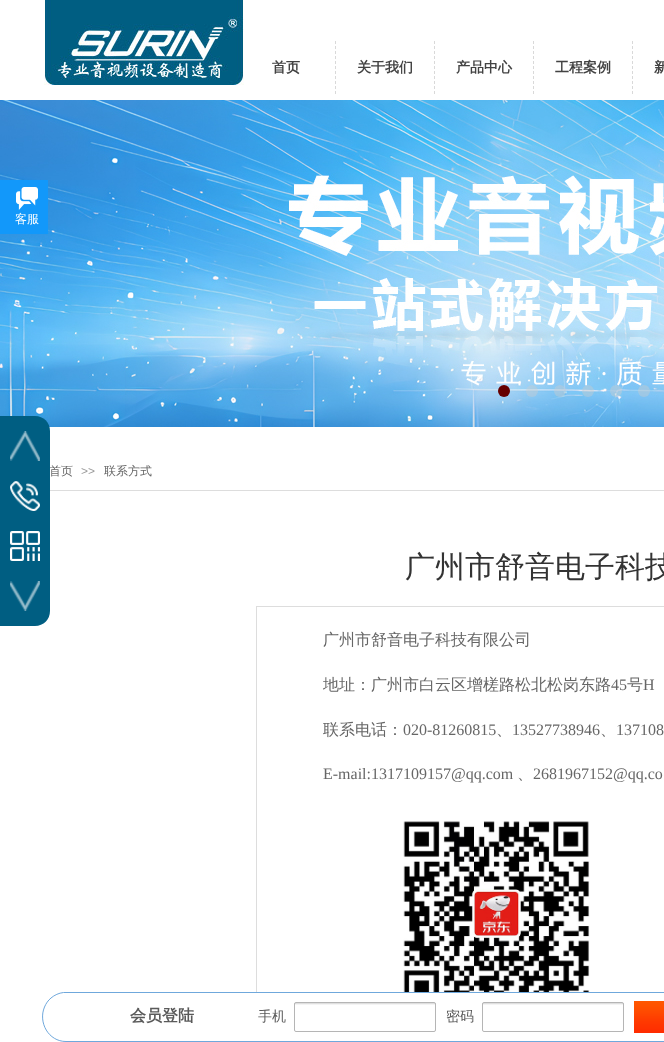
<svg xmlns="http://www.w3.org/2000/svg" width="664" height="1042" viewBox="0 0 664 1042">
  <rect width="100%" height="100%" fill="rgb(255,255,255)"/>
  <image x="0" y="100" width="664" height="327" href="pic3.png"/>
  <rect x="0" y="180" width="48" height="54" fill="rgb(18,152,250)"/>
  <image x="16" y="187" width="22" height="23" href="pic1.png"/>
  <text x="15" y="223" font-family="WenQuanYi Zen Hei" font-size="12" font-weight="500" fill="rgb(255,255,255)">客服</text>
  <image x="44" y="0" width="200" height="85" href="pic2.png"/>
  <path d="M335.5 41V94" fill="none" stroke="rgb(217,217,217)" stroke-dasharray="3 2"/>
  <text x="272" y="72" font-family="WenQuanYi Zen Hei" font-size="14" font-weight="bold" fill="rgb(67,67,67)">首页</text>
  <path d="M434.5 41V94" fill="none" stroke="rgb(217,217,217)" stroke-dasharray="3 2"/>
  <text x="357" y="72" font-family="WenQuanYi Zen Hei" font-size="14" font-weight="bold" fill="rgb(67,67,67)">关于我们</text>
  <path d="M533.5 41V94" fill="none" stroke="rgb(217,217,217)" stroke-dasharray="3 2"/>
  <text x="456" y="72" font-family="WenQuanYi Zen Hei" font-size="14" font-weight="bold" fill="rgb(67,67,67)">产品中心</text>
  <path d="M632.5 41V94" fill="none" stroke="rgb(217,217,217)" stroke-dasharray="3 2"/>
  <g font-family="WenQuanYi Zen Hei" font-size="14" font-weight="bold" fill="rgb(67,67,67)">
    <text x="555" y="72">工程案例</text>
    <text x="654" y="72">新</text>
  </g>
  <circle cx="504" cy="391" r="6" fill="rgb(102,0,0)"/>
  <circle cx="532" cy="391" r="6" fill="rgba(204,204,204,0.4)"/>
  <circle cx="560" cy="391" r="6" fill="rgba(204,204,204,0.4)"/>
  <circle cx="588" cy="391" r="6" fill="rgba(204,204,204,0.4)"/>
  <circle cx="616" cy="391" r="6" fill="rgba(204,204,204,0.4)"/>
  <circle cx="644" cy="391" r="6" fill="rgba(204,204,204,0.4)"/>
  <rect x="50" y="490" width="614" height="1" fill="rgb(221,221,221)"/>
  <text x="49" y="475" font-family="WenQuanYi Zen Hei" font-size="12" font-weight="500" fill="rgb(102,102,102)">首页</text>
  <text x="81" y="475" font-family="Liberation Sans" font-size="12" fill="rgb(153,153,153)">&gt;&gt;</text>
  <text x="104" y="475" font-family="WenQuanYi Zen Hei" font-size="12" font-weight="500" fill="rgb(102,102,102)">联系方式</text>
  <text x="405" y="577" font-family="WenQuanYi Zen Hei" font-size="30" font-weight="500" fill="rgb(51,51,51)">广州市舒音电子科技</text>
  <rect x="256.5" y="606.5" width="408" height="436" fill="none" stroke="rgb(221,221,221)"/>
  <g font-family="WenQuanYi Zen Hei" font-size="16" font-weight="500" fill="rgb(102,102,102)">
    <text x="323" y="645">广州市舒音电子科技有限公司</text>
    <text x="323" y="690">地址：广州市白云区增槎路松北松岗东路</text>
  </g>
  <text x="611" y="690" font-family="Liberation Serif" font-size="16" fill="rgb(102,102,102)">45</text>
  <text x="627" y="690" font-family="WenQuanYi Zen Hei" font-size="16" font-weight="500" fill="rgb(102,102,102)">号</text>
  <text x="643" y="690" font-family="Liberation Serif" font-size="16" fill="rgb(102,102,102)">H</text>
  <text x="323" y="735" font-family="WenQuanYi Zen Hei" font-size="16" font-weight="500" fill="rgb(102,102,102)">联系电话：</text>
  <text x="403" y="735" font-family="Liberation Serif" font-size="16" fill="rgb(102,102,102)">020-81260815</text>
  <text x="496" y="735" font-family="WenQuanYi Zen Hei" font-size="16" font-weight="500" fill="rgb(102,102,102)">、</text>
  <text x="512" y="735" font-family="Liberation Serif" font-size="16" fill="rgb(102,102,102)">13527738946</text>
  <text x="600" y="735" font-family="WenQuanYi Zen Hei" font-size="16" font-weight="500" fill="rgb(102,102,102)">、</text>
  <g font-family="Liberation Serif" font-size="16" fill="rgb(102,102,102)">
    <text x="616" y="735">137108</text>
    <text x="323" y="779">E-mail:1317109157@qq.com</text>
  </g>
  <text x="517" y="779" font-family="WenQuanYi Zen Hei" font-size="16" font-weight="500" fill="rgb(102,102,102)">、</text>
  <text x="533" y="779" font-family="Liberation Serif" font-size="16" fill="rgb(102,102,102)">2681967152@qq.co</text>
  <image x="403" y="821" width="187" height="171" href="pic4.png"/>
  <path d="M0 416H35C43.5 416 50 422.5 50 431V611C50 619.5 43.5 626 35 626H0Z" fill="rgb(0,94,130)"/>
  <image x="10" y="431" width="30" height="30" href="pic5.png"/>
  <image x="10" y="481" width="30" height="30" href="pic6.png"/>
  <image x="10" y="531" width="30" height="30" href="pic7.png"/>
  <image x="10" y="581" width="30" height="30" href="pic8.png"/>
  <rect x="42" y="992" width="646" height="50" rx="24" fill="rgb(255,255,255)"/>
  <path d="M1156.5 1034.5C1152 1039 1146 1041.5 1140 1041.5H66C48.5 1041.5 38 1022.5 44.5 1007C46 1003.5 48 1000.5 51 998C54.5 995 59 993 63.5 992.5H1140C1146 992.5 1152 995 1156.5 999.5" fill="none" stroke="rgb(111,168,220)"/>
  <text x="130" y="1021" font-family="WenQuanYi Zen Hei" font-size="16" font-weight="bold" fill="rgb(90,90,90)">会员登陆</text>
  <text x="258" y="1021" font-family="WenQuanYi Zen Hei" font-size="14" font-weight="500" fill="rgb(90,90,90)">手机</text>
  <image x="294" y="1003" width="142" height="2" href="pic9.png"/>
  <rect x="294.5" y="1002.5" width="141" height="29" rx="1.5" fill="none" stroke="rgb(181,181,181)"/>
  <text x="446" y="1021" font-family="WenQuanYi Zen Hei" font-size="14" font-weight="500" fill="rgb(90,90,90)">密码</text>
  <image x="482" y="1003" width="142" height="2" href="pic9.png"/>
  <rect x="482.5" y="1002.5" width="141" height="29" rx="1.5" fill="none" stroke="rgb(181,181,181)"/>
  <image x="634" y="1001" width="30" height="32" href="pic10.png"/>
</svg>
